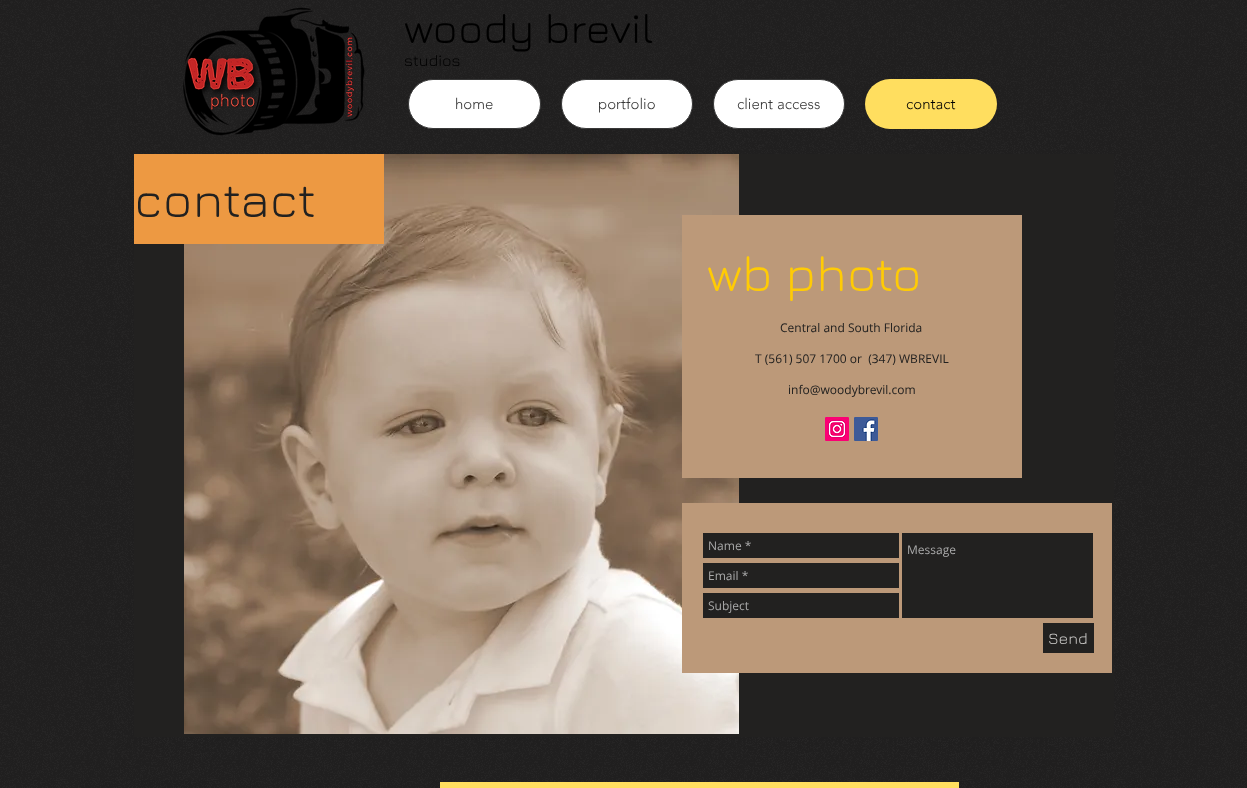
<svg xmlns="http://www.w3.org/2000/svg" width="1247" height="788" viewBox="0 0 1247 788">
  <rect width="100%" height="100%" fill="rgb(34,33,32)"/>
  <image x="0" y="0" width="1247" height="788" href="pic1.png"/>
  <text x="404" y="43" font-family="Jura" font-size="42" fill="rgb(0,0,0)">woody brevil</text>
  <text x="404" y="66" font-family="Jura" font-size="16" fill="rgb(0,0,0)">studios</text>
  <rect x="408.5" y="79.5" width="132" height="49" rx="24.5" fill="rgb(255,255,255)" stroke="rgb(56,56,56)"/>
  <text x="455" y="109" font-family="'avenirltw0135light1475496'" font-size="15" font-weight="300" fill="rgb(56,56,56)">home</text>
  <rect x="561.5" y="79.5" width="131" height="49" rx="24.5" fill="rgb(255,255,255)" stroke="rgb(56,56,56)"/>
  <text x="598" y="109" font-family="'avenirltw0135light1475496'" font-size="15" font-weight="300" fill="rgb(56,56,56)">portfolio</text>
  <rect x="713.5" y="79.5" width="131" height="49" rx="24.5" fill="rgb(255,255,255)" stroke="rgb(56,56,56)"/>
  <text x="737" y="109" font-family="'avenirltw0135light1475496'" font-size="15" font-weight="300" fill="rgb(56,56,56)">client access</text>
  <rect x="865" y="79" width="132" height="50" rx="25" fill="rgb(255,222,95)"/>
  <text x="906" y="109" font-family="'avenirltw0135light1475496'" font-size="15" font-weight="300" fill="rgb(0,0,0)">contact</text>
  <rect x="134" y="154" width="980" height="583" fill="rgb(34,33,32)"/>
  <image x="183" y="7" width="182" height="129" href="pic2.png"/>
  <image x="184" y="154" width="555" height="580" href="pic3.png"/>
  <rect x="134" y="154" width="250" height="90" fill="rgb(237,153,66)"/>
  <text x="134" y="217" font-family="Jura" font-size="50" fill="rgb(34,33,32)">contact</text>
  <rect x="682" y="215" width="340" height="263" fill="rgb(188,153,121)"/>
  <text x="707" y="291" font-family="Jura" font-size="50" fill="rgb(255,203,5)">wb photo</text>
  <g font-family="Open Sans" font-size="12" fill="rgb(34,33,32)">
    <text x="780" y="332">Central and South Florida</text>
    <text x="755" y="363" xml:space="preserve">T (561) 507 1700 or  (347) WBREVIL</text>
    <text x="788" y="394">info@woodybrevil.com</text>
  </g>
  <image x="825" y="417" width="24" height="24" href="pic4.png"/>
  <image x="854" y="417" width="24" height="24" href="pic5.png"/>
  <rect x="682" y="503" width="430" height="170" fill="rgb(188,153,121)"/>
  <rect x="703" y="533" width="196" height="25" fill="rgb(34,33,32)"/>
  <text x="708" y="550" font-family="Open Sans" font-size="12" fill="rgb(169,169,169)">Name *</text>
  <rect x="902" y="533" width="191" height="85" fill="rgb(34,33,32)"/>
  <text x="907" y="554" font-family="Open Sans" font-size="12" fill="rgb(169,169,169)">Message</text>
  <rect x="703" y="563" width="196" height="25" fill="rgb(34,33,32)"/>
  <text x="708" y="580" font-family="Open Sans" font-size="12" fill="rgb(169,169,169)">Email *</text>
  <rect x="703" y="593" width="196" height="25" fill="rgb(34,33,32)"/>
  <text x="708" y="610" font-family="Open Sans" font-size="12" fill="rgb(169,169,169)">Subject</text>
  <rect x="1043" y="623" width="51" height="30" fill="rgb(34,33,32)"/>
  <text x="1048" y="644" font-family="Jura" font-size="16" fill="rgb(208,207,205)">Send</text>
  <rect x="440" y="782" width="519" height="6" fill="rgb(255,222,95)"/>
</svg>
